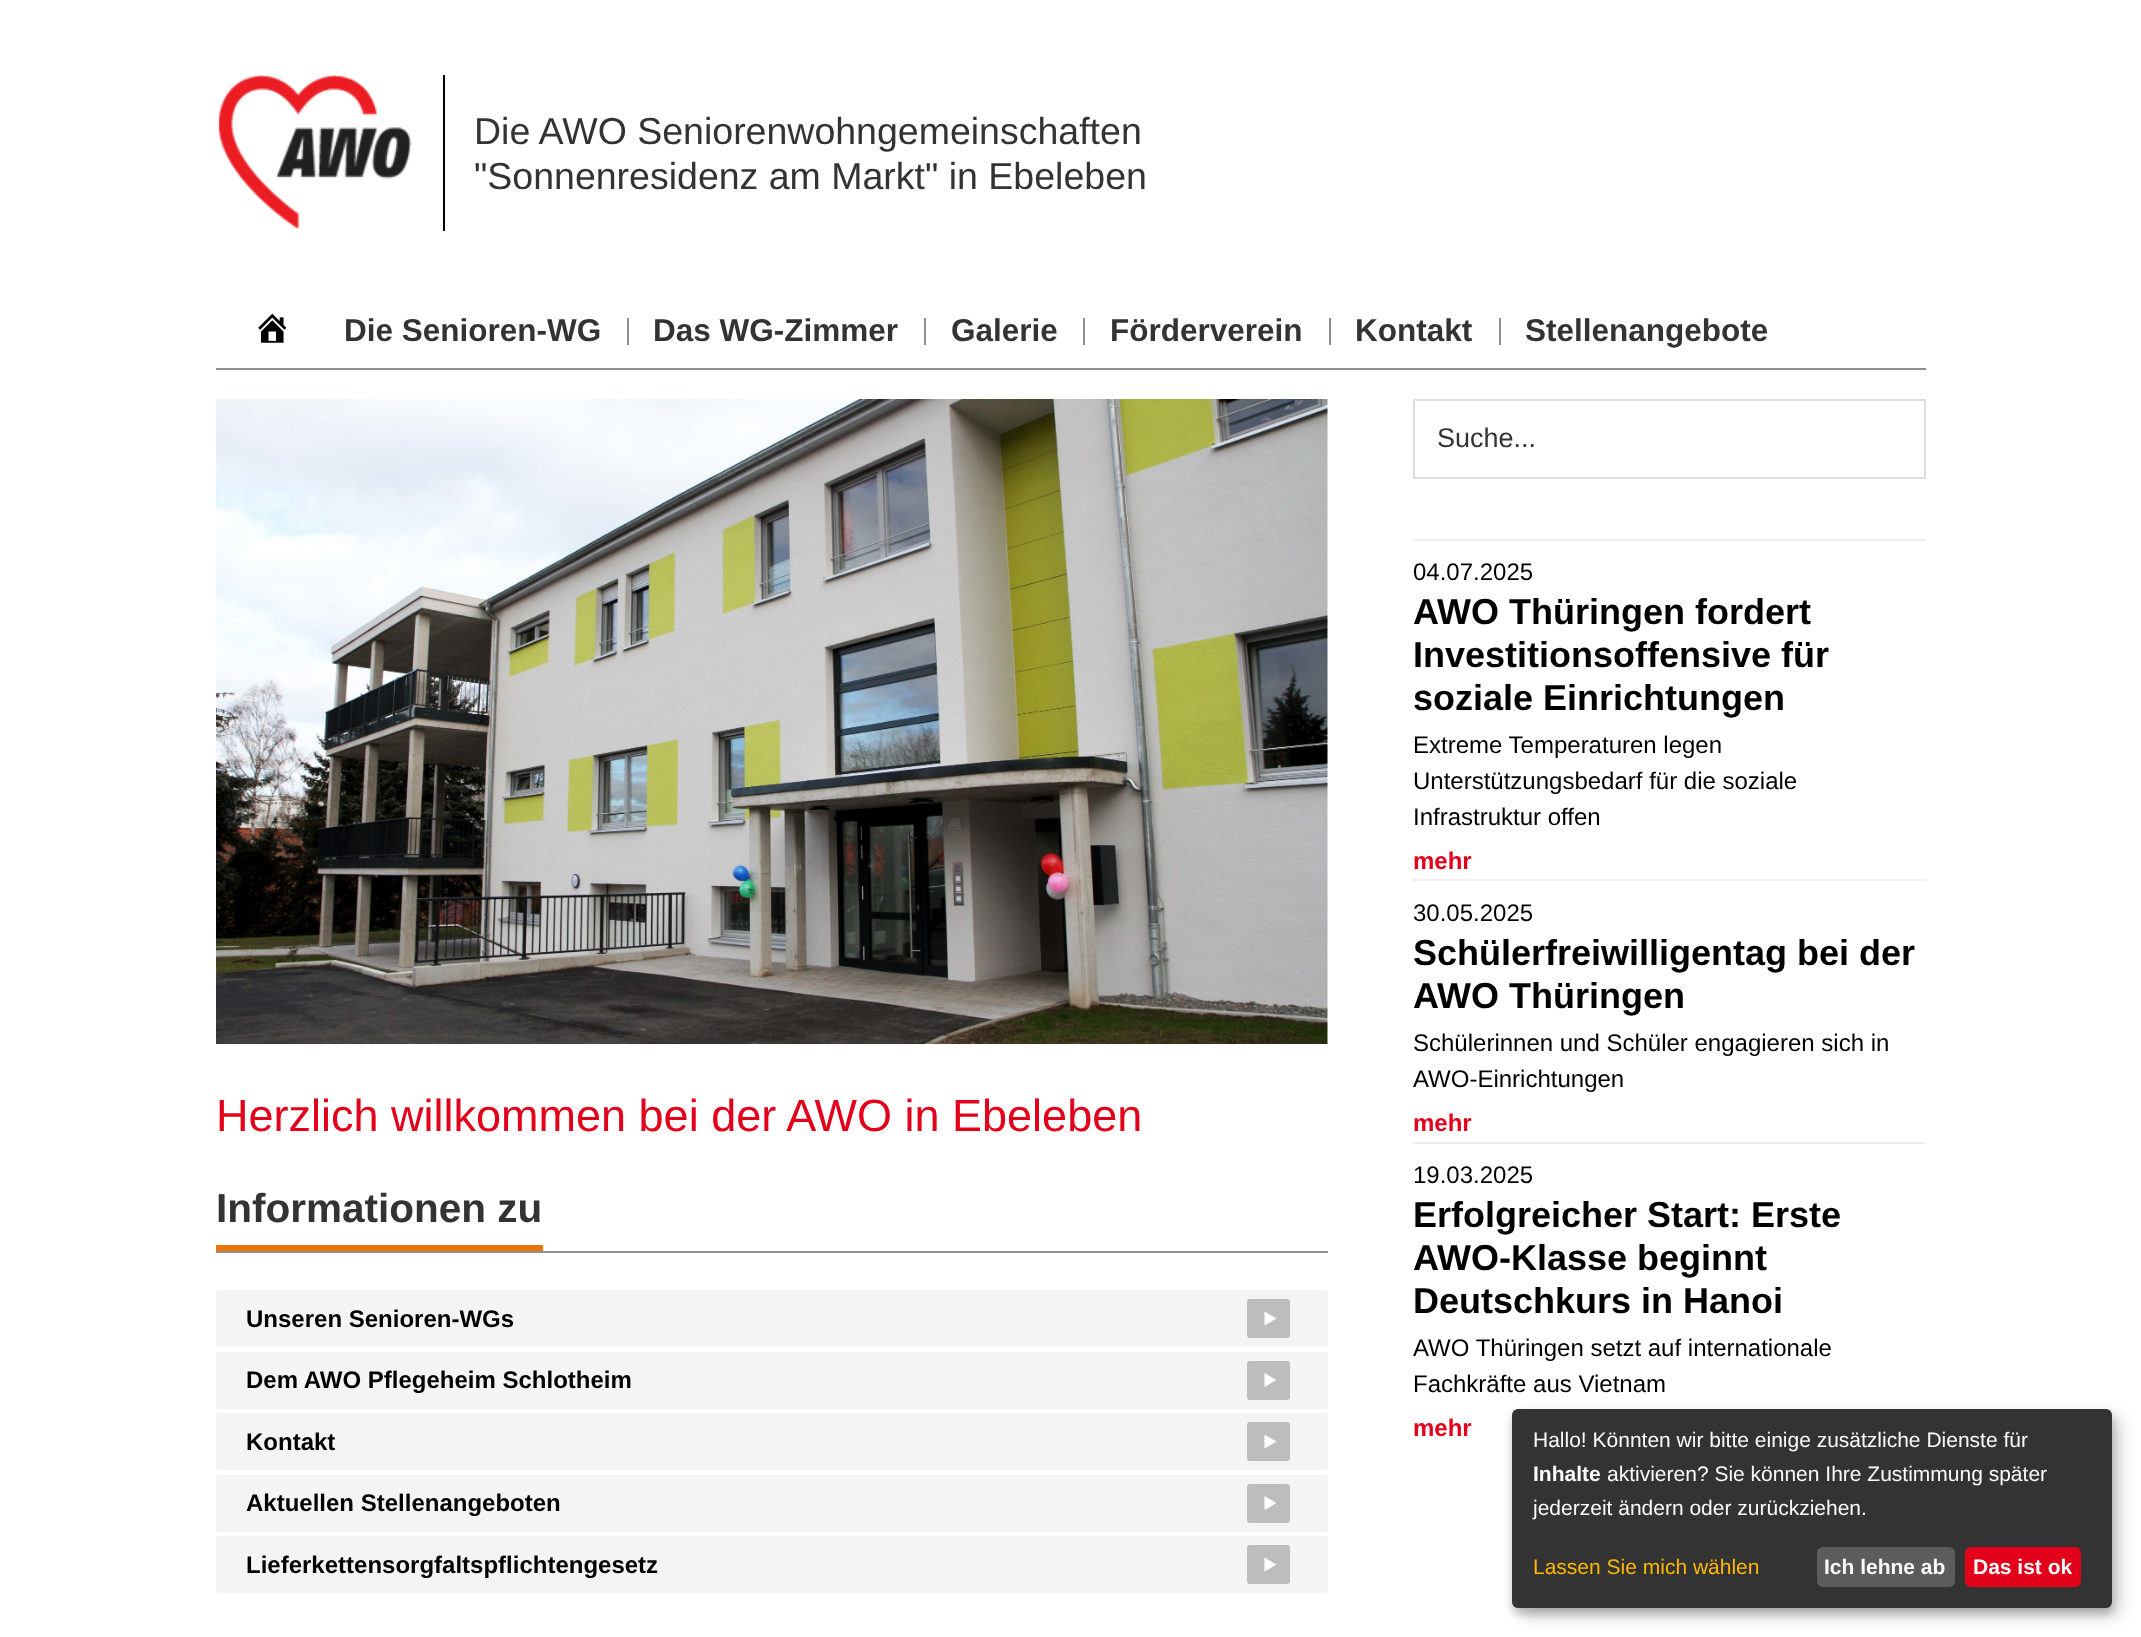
<svg xmlns="http://www.w3.org/2000/svg" width="2141" height="1637" viewBox="0 0 2141 1637">
  <rect width="100%" height="100%" fill="rgb(255,255,255)"/>
  <rect x="216" y="368" width="1710" height="2" fill="rgb(142,142,142)"/>
  <rect x="443" y="75" width="2" height="156" fill="rgb(0,0,0)"/>
  <image x="218" y="75" width="194" height="154" href="pic1.png"/>
  <g font-family="Liberation Sans" font-size="37.5" fill="rgb(51,51,51)">
    <text>
      <tspan x="474" y="144">Die AWO Seniorenwohngemeinschaften</tspan>
      <tspan x="474" y="189">"Sonnenresidenz am Markt" in Ebeleben</tspan>
    </text>
  </g>
  <image x="258" y="313" width="29" height="30" href="pic2.png"/>
  <text x="344" y="341" font-family="Liberation Sans" font-size="31.5" font-weight="bold" fill="rgb(51,51,51)">Die Senioren-WG</text>
  <rect x="627" y="318" width="2" height="27" fill="rgb(142,142,142)"/>
  <text x="653" y="341" font-family="Liberation Sans" font-size="31.5" font-weight="bold" fill="rgb(51,51,51)">Das WG-Zimmer</text>
  <rect x="924" y="318" width="2" height="27" fill="rgb(142,142,142)"/>
  <text x="951" y="341" font-family="Liberation Sans" font-size="31.5" font-weight="bold" fill="rgb(51,51,51)">Galerie</text>
  <rect x="1083" y="318" width="2" height="27" fill="rgb(142,142,142)"/>
  <text x="1110" y="341" font-family="Liberation Sans" font-size="31.5" font-weight="bold" fill="rgb(51,51,51)">Förderverein</text>
  <rect x="1329" y="318" width="2" height="27" fill="rgb(142,142,142)"/>
  <text x="1355" y="341" font-family="Liberation Sans" font-size="31.5" font-weight="bold" fill="rgb(51,51,51)">Kontakt</text>
  <rect x="1499" y="318" width="2" height="27" fill="rgb(142,142,142)"/>
  <text x="1525" y="341" font-family="Liberation Sans" font-size="31.5" font-weight="bold" fill="rgb(51,51,51)">Stellenangebote</text>
  <image x="216" y="399" width="1112" height="645" href="pic3.png"/>
  <text x="216" y="1131" font-family="Liberation Sans" font-size="45" fill="rgb(226,0,26)">Herzlich willkommen bei der AWO in Ebeleben</text>
  <rect x="216" y="1251" width="1112" height="2" fill="rgb(142,142,142)"/>
  <text x="216" y="1222" font-family="Liberation Sans" font-size="40.5" font-weight="bold" fill="rgb(51,51,51)">Informationen zu</text>
  <rect x="216" y="1245" width="327" height="6" fill="rgb(236,116,4)"/>
  <rect x="216" y="1290" width="1112" height="57" rx="3" fill="rgb(244,244,244)"/>
  <text x="246" y="1327" font-family="Liberation Sans" font-size="24" font-weight="bold" fill="rgb(0,0,0)">Unseren Senioren-WGs</text>
  <rect x="1247" y="1299" width="43" height="39" rx="3" fill="rgb(189,189,189)"/>
  <path d="M1264.5 1311.5L1276.5 1318.5L1264.5 1325.5Z" fill="rgb(255,255,255)"/>
  <rect x="216" y="1352" width="1112" height="57" rx="3" fill="rgb(244,244,244)"/>
  <text x="246" y="1388" font-family="Liberation Sans" font-size="24" font-weight="bold" fill="rgb(0,0,0)">Dem AWO Pflegeheim Schlotheim</text>
  <rect x="1247" y="1361" width="43" height="39" rx="3" fill="rgb(189,189,189)"/>
  <path d="M1264.5 1373L1276.5 1380L1264.5 1387Z" fill="rgb(255,255,255)"/>
  <rect x="216" y="1413" width="1112" height="57" rx="3" fill="rgb(244,244,244)"/>
  <text x="246" y="1450" font-family="Liberation Sans" font-size="24" font-weight="bold" fill="rgb(0,0,0)">Kontakt</text>
  <rect x="1247" y="1422" width="43" height="39" rx="3" fill="rgb(189,189,189)"/>
  <path d="M1264.5 1434.5L1276.5 1441.5L1264.5 1448.5Z" fill="rgb(255,255,255)"/>
  <rect x="216" y="1475" width="1112" height="57" rx="3" fill="rgb(244,244,244)"/>
  <text x="246" y="1511" font-family="Liberation Sans" font-size="24" font-weight="bold" fill="rgb(0,0,0)">Aktuellen Stellenangeboten</text>
  <rect x="1247" y="1484" width="43" height="39" rx="3" fill="rgb(189,189,189)"/>
  <path d="M1264.5 1496L1276.5 1503L1264.5 1510Z" fill="rgb(255,255,255)"/>
  <rect x="216" y="1536" width="1112" height="57" rx="3" fill="rgb(244,244,244)"/>
  <text x="246" y="1573" font-family="Liberation Sans" font-size="24" font-weight="bold" fill="rgb(0,0,0)">Lieferkettensorgfaltspflichtengesetz</text>
  <rect x="1247" y="1545" width="43" height="39" rx="3" fill="rgb(189,189,189)"/>
  <path d="M1264.5 1557.5L1276.5 1564.5L1264.5 1571.5Z" fill="rgb(255,255,255)"/>
  <rect x="1414" y="400" width="511" height="78" fill="none" stroke="rgb(221,221,221)" stroke-width="2"/>
  <text x="1437" y="447" font-family="Liberation Sans" font-size="27" fill="rgb(51,51,51)">Suche...</text>
  <rect x="1413" y="539" width="513" height="2" fill="rgb(238,238,238)"/>
  <text x="1413" y="580" font-family="Liberation Sans" font-size="24" fill="rgb(0,0,0)">04.07.2025</text>
  <g font-family="Liberation Sans" font-size="36" font-weight="bold" fill="rgb(0,0,0)">
    <text>
      <tspan x="1413" y="624">AWO Thüringen fordert</tspan>
      <tspan x="1413" y="667">Investitionsoffensive für</tspan>
      <tspan x="1413" y="710">soziale Einrichtungen</tspan>
    </text>
  </g>
  <g font-family="Liberation Sans" font-size="24" fill="rgb(0,0,0)">
    <text>
      <tspan x="1413" y="753">Extreme Temperaturen legen</tspan>
      <tspan x="1413" y="789">Unterstützungsbedarf für die soziale</tspan>
      <tspan x="1413" y="825">Infrastruktur offen</tspan>
    </text>
  </g>
  <text x="1413" y="869" font-family="Liberation Sans" font-size="24" font-weight="bold" fill="rgb(226,0,26)">mehr</text>
  <rect x="1413" y="879" width="513" height="2" fill="rgb(238,238,238)"/>
  <text x="1413" y="921" font-family="Liberation Sans" font-size="24" fill="rgb(0,0,0)">30.05.2025</text>
  <g font-family="Liberation Sans" font-size="36" font-weight="bold" fill="rgb(0,0,0)">
    <text>
      <tspan x="1413" y="965">Schülerfreiwilligentag bei der</tspan>
      <tspan x="1413" y="1008">AWO Thüringen</tspan>
    </text>
  </g>
  <g font-family="Liberation Sans" font-size="24" fill="rgb(0,0,0)">
    <text>
      <tspan x="1413" y="1051">Schülerinnen und Schüler engagieren sich in</tspan>
      <tspan x="1413" y="1087">AWO-Einrichtungen</tspan>
    </text>
  </g>
  <text x="1413" y="1131" font-family="Liberation Sans" font-size="24" font-weight="bold" fill="rgb(226,0,26)">mehr</text>
  <rect x="1413" y="1142" width="513" height="2" fill="rgb(238,238,238)"/>
  <text x="1413" y="1183" font-family="Liberation Sans" font-size="24" fill="rgb(0,0,0)">19.03.2025</text>
  <g font-family="Liberation Sans" font-size="36" font-weight="bold" fill="rgb(0,0,0)">
    <text>
      <tspan x="1413" y="1227">Erfolgreicher Start: Erste</tspan>
      <tspan x="1413" y="1270">AWO-Klasse beginnt</tspan>
      <tspan x="1413" y="1313">Deutschkurs in Hanoi</tspan>
    </text>
  </g>
  <g font-family="Liberation Sans" font-size="24" fill="rgb(0,0,0)">
    <text>
      <tspan x="1413" y="1356">AWO Thüringen setzt auf internationale</tspan>
      <tspan x="1413" y="1392">Fachkräfte aus Vietnam</tspan>
    </text>
  </g>
  <text x="1413" y="1436" font-family="Liberation Sans" font-size="24" font-weight="bold" fill="rgb(226,0,26)">mehr</text>
  <rect x="1520" y="1416" width="600" height="200" rx="6" fill="rgba(0,0,0,0.19)" filter="blur(7.5px)"/>
  <rect x="1512" y="1415" width="600" height="199" rx="6" fill="rgba(0,0,0,0.2)" filter="blur(4.5px)"/>
  <rect x="1512" y="1409" width="600" height="199" rx="6" fill="rgb(51,51,51)"/>
  <text x="1533" y="1447" font-family="Liberation Sans" font-size="21" fill="rgb(250,250,250)">Hallo! Könnten wir bitte einige zusätzliche Dienste für</text>
  <text x="1533" y="1481" font-family="Liberation Sans" font-size="21" font-weight="bold" fill="rgb(250,250,250)">Inhalte</text>
  <g font-family="Liberation Sans" font-size="21" fill="rgb(250,250,250)">
    <text x="1607" y="1481">aktivieren? Sie können Ihre Zustimmung später</text>
    <text x="1533" y="1515">jederzeit ändern oder zurückziehen.</text>
  </g>
  <text x="1533" y="1574" font-family="Liberation Sans" font-size="21" fill="rgb(255,183,0)">Lassen Sie mich wählen</text>
  <rect x="1817" y="1547" width="138" height="40" rx="6" fill="rgb(92,92,92)"/>
  <text x="1824" y="1574" font-family="Liberation Sans" font-size="21" font-weight="bold" fill="rgb(250,250,250)">Ich lehne ab</text>
  <rect x="1965" y="1547" width="116" height="40" rx="6" fill="rgb(226,0,26)"/>
  <text x="1973" y="1574" font-family="Liberation Sans" font-size="21" font-weight="bold" fill="rgb(250,250,250)">Das ist ok</text>
</svg>
